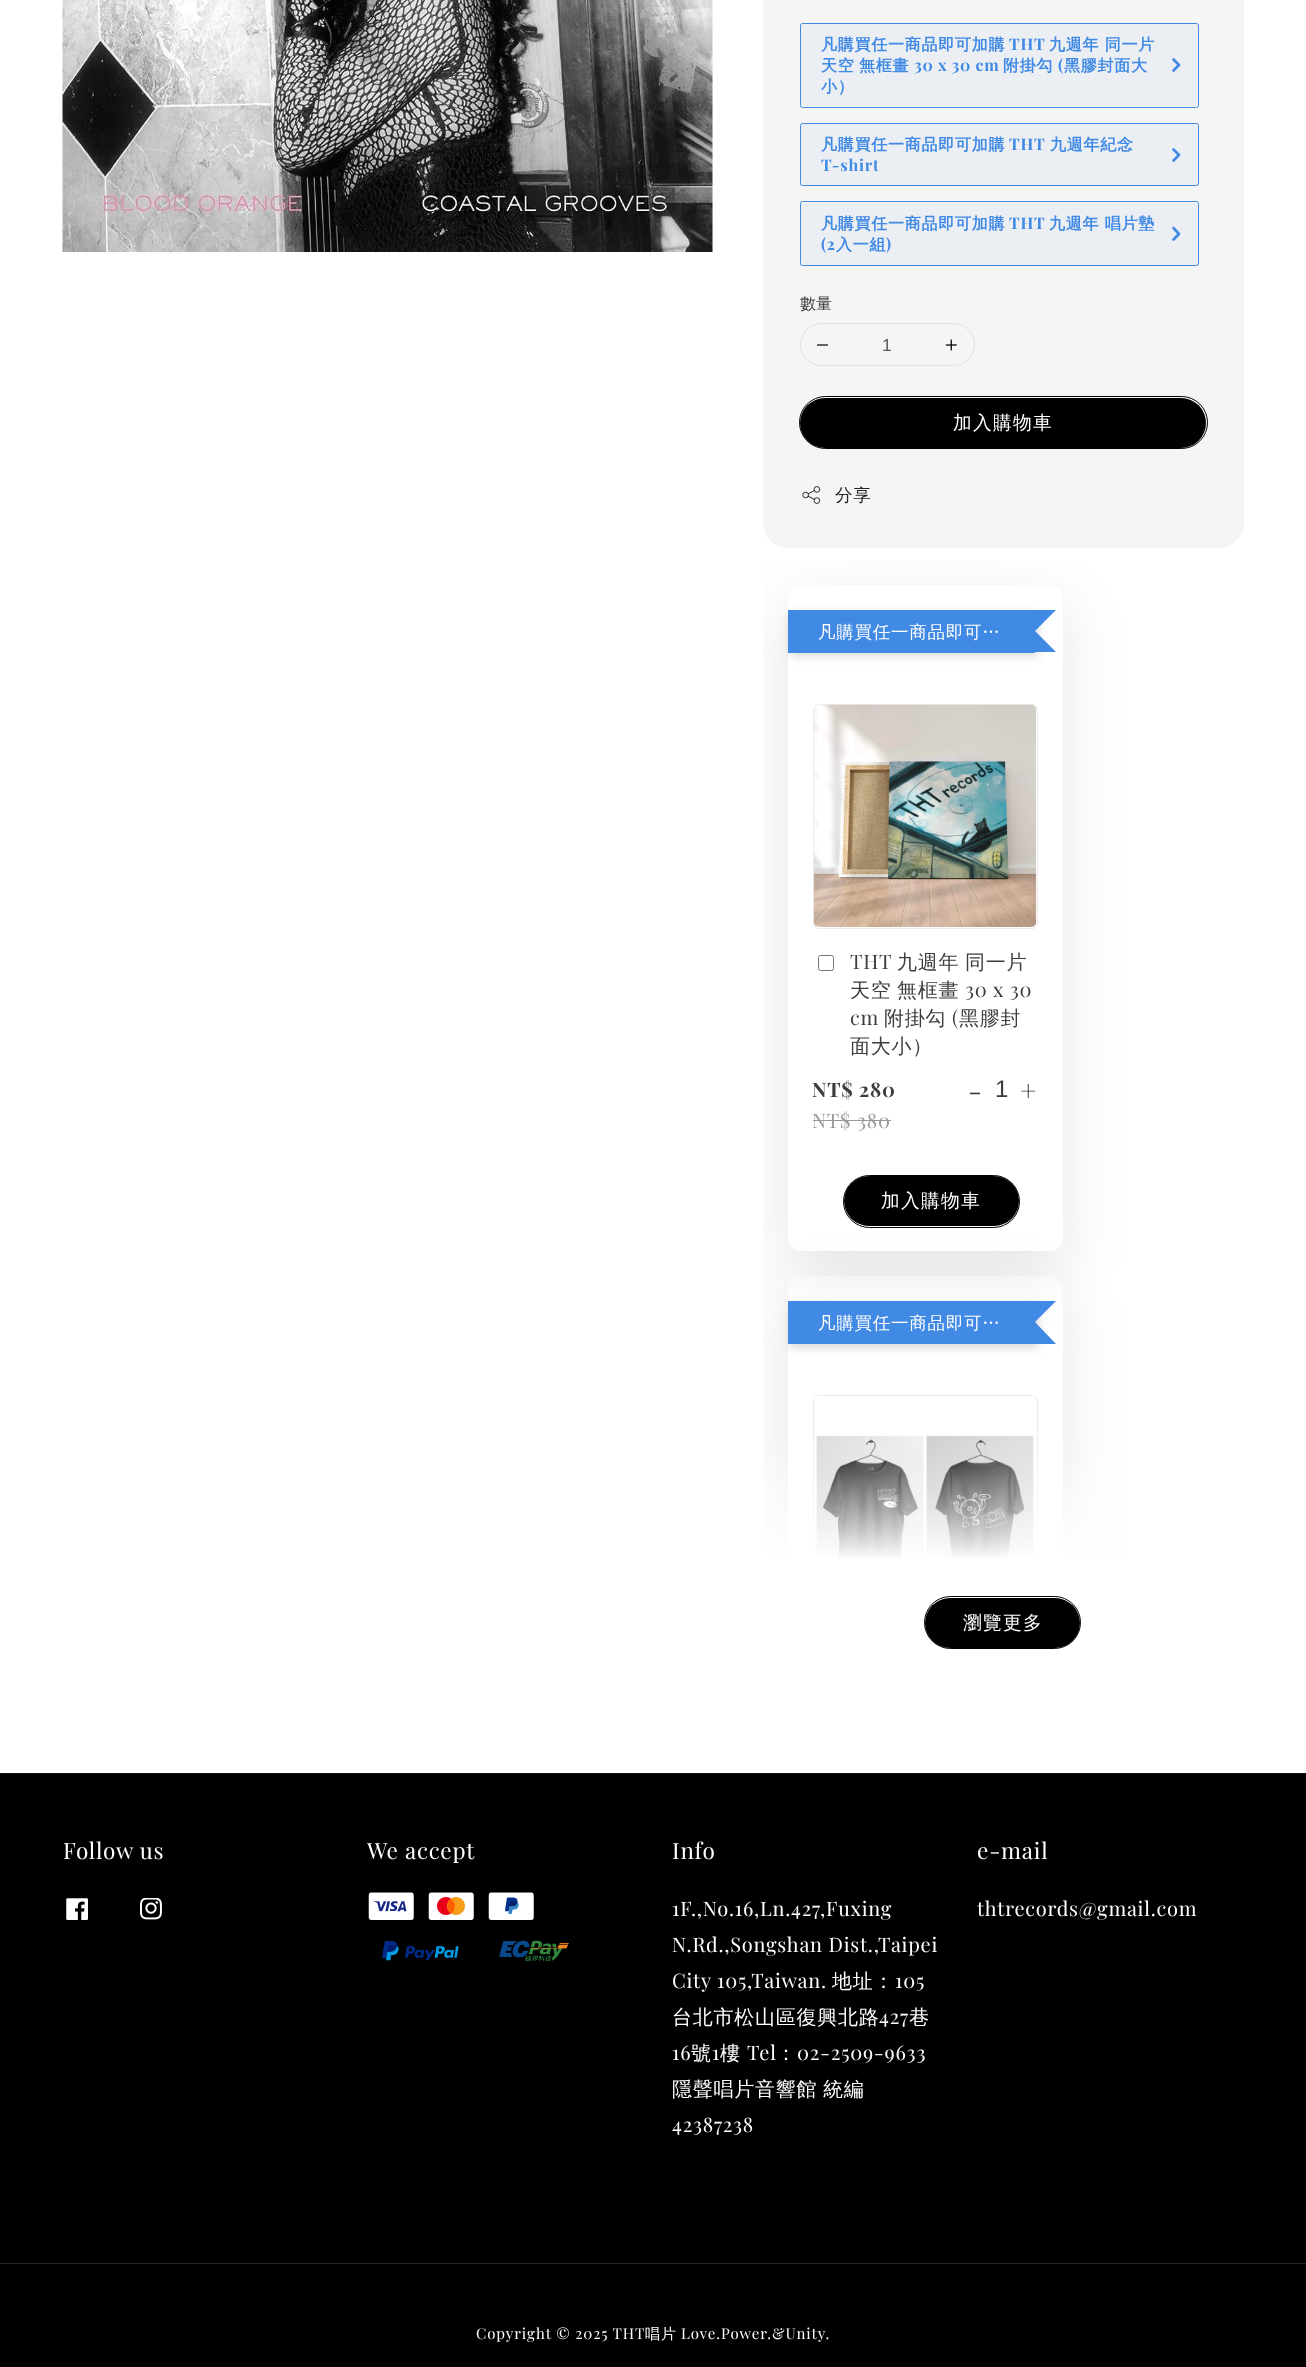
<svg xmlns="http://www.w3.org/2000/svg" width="1306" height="2367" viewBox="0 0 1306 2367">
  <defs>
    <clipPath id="clip1"><rect x="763" y="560" width="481" height="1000"/></clipPath>
    <clipPath id="clip2"><path d="M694 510H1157V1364H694ZM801 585H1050C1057 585 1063 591 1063 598V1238C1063 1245 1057 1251 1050 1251H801C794 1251 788 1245 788 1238V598C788 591 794 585 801 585Z" clip-rule="evenodd"/></clipPath>
    <clipPath id="clip3"><path d="M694 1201H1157V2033H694ZM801 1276H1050C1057 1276 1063 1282 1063 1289V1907C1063 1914 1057 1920 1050 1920H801C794 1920 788 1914 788 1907V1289C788 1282 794 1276 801 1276Z" clip-rule="evenodd"/></clipPath>
    <clipPath id="clip4"><rect x="788" y="1395" width="275" height="165"/></clipPath>
    <linearGradient id="g1" gradientUnits="userSpaceOnUse" x1="1003" y1="1560" x2="1003" y2="1435"><stop offset="0" stop-color="rgb(255,255,255)"/><stop offset="1" stop-color="rgb(255,255,255)" stop-opacity="0"/></linearGradient>
  </defs>
  <rect width="100%" height="100%" fill="rgb(255,255,255)"/>
  <image x="62" y="0" width="651" height="252" href="pic1.png"/>
  <rect x="763" y="-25" width="481" height="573" rx="25" fill="rgb(245,245,245)"/>
  <rect x="800.5" y="23.5" width="398" height="84" rx="2" fill="none" stroke="rgb(64,137,228)"/>
  <path d="M1173.5 59.5L1179 65L1173.5 70.5" fill="none" stroke="rgb(64,137,228)" stroke-width="2.6" stroke-linecap="round" stroke-linejoin="round"/>
  <rect x="801" y="24" width="397" height="82" fill="rgba(64,137,228,0.05)"/>
  <text x="821" y="50" font-family="WenQuanYi Zen Hei" font-size="16" font-weight="bold" letter-spacing="0.75" fill="rgb(64,137,228)">凡購買任一商品即可加購</text>
  <text x="1009" y="50" font-family="Playfair Display" font-size="16" font-weight="bold" letter-spacing="0.75" fill="rgb(64,137,228)">THT</text>
  <g font-family="WenQuanYi Zen Hei" font-size="16" font-weight="bold" letter-spacing="0.75" fill="rgb(64,137,228)">
    <text x="1049" y="50">九週年 同一片</text>
    <text x="821" y="71">天空</text>
    <text x="859" y="71">無框畫</text>
  </g>
  <text x="914" y="71" font-family="Playfair Display" font-size="16" font-weight="bold" letter-spacing="0.75" fill="rgb(64,137,228)">30 x 30 cm</text>
  <text x="1003" y="71" font-family="WenQuanYi Zen Hei" font-size="16" font-weight="bold" letter-spacing="0.75" fill="rgb(64,137,228)">附掛勾</text>
  <text x="1058" y="71" font-family="Playfair Display" font-size="16" font-weight="bold" letter-spacing="0.75" fill="rgb(64,137,228)">(</text>
  <g font-family="WenQuanYi Zen Hei" font-size="16" font-weight="bold" letter-spacing="0.75" fill="rgb(64,137,228)">
    <text x="1064" y="71">黑膠封面大</text>
    <text x="821" y="92">小）</text>
  </g>
  <rect x="800.5" y="123.5" width="398" height="62" rx="2" fill="none" stroke="rgb(64,137,228)"/>
  <path d="M1173.5 149.5L1179 155L1173.5 160.5" fill="none" stroke="rgb(64,137,228)" stroke-width="2.6" stroke-linecap="round" stroke-linejoin="round"/>
  <rect x="801" y="124" width="397" height="61" fill="rgba(64,137,228,0.05)"/>
  <text x="821" y="150" font-family="WenQuanYi Zen Hei" font-size="16" font-weight="bold" letter-spacing="0.75" fill="rgb(64,137,228)">凡購買任一商品即可加購</text>
  <text x="1009" y="150" font-family="Playfair Display" font-size="16" font-weight="bold" letter-spacing="0.75" fill="rgb(64,137,228)">THT</text>
  <text x="1050" y="150" font-family="WenQuanYi Zen Hei" font-size="16" font-weight="bold" letter-spacing="0.75" fill="rgb(64,137,228)">九週年紀念</text>
  <text x="821" y="171" font-family="Playfair Display" font-size="16" font-weight="bold" letter-spacing="0.75" fill="rgb(64,137,228)">T-shirt</text>
  <rect x="800.5" y="201.5" width="398" height="64" rx="2" fill="none" stroke="rgb(64,137,228)"/>
  <path d="M1173.5 228L1179 234L1173.5 239.5" fill="none" stroke="rgb(64,137,228)" stroke-width="2.6" stroke-linecap="round" stroke-linejoin="round"/>
  <rect x="801" y="203" width="397" height="62" fill="rgba(64,137,228,0.05)"/>
  <text x="821" y="229" font-family="WenQuanYi Zen Hei" font-size="16" font-weight="bold" letter-spacing="0.75" fill="rgb(64,137,228)">凡購買任一商品即可加購</text>
  <text x="1009" y="229" font-family="Playfair Display" font-size="16" font-weight="bold" letter-spacing="0.75" fill="rgb(64,137,228)">THT</text>
  <text x="1049" y="229" font-family="WenQuanYi Zen Hei" font-size="16" font-weight="bold" letter-spacing="0.75" fill="rgb(64,137,228)">九週年 唱片墊</text>
  <text x="821" y="250" font-family="Playfair Display" font-size="16" font-weight="bold" letter-spacing="0.75" fill="rgb(64,137,228)">(2</text>
  <text x="836" y="250" font-family="WenQuanYi Zen Hei" font-size="16" font-weight="bold" letter-spacing="0.75" fill="rgb(64,137,228)">入一組</text>
  <text x="886" y="250" font-family="Playfair Display" font-size="16" font-weight="bold" letter-spacing="0.75" fill="rgb(64,137,228)">)</text>
  <text x="800" y="309" font-family="WenQuanYi Zen Hei" font-size="16" font-weight="500" fill="rgb(61,61,61)">數量</text>
  <rect x="800.5" y="323.5" width="174" height="42" rx="21" fill="none" stroke="rgb(225,225,225)"/>
  <image x="817" y="344" width="11" height="2" href="pic2.png"/>
  <text x="882" y="351" font-family="Liberation Sans" font-size="17.5" fill="rgb(89,89,89)">1</text>
  <image x="945" y="339" width="12" height="12" href="pic3.png"/>
  <rect x="799.5" y="396.5" width="408" height="52" rx="26" fill="none" stroke="rgb(0,0,0)"/>
  <rect x="800" y="398" width="406" height="50" rx="25" fill="rgb(0,0,0)"/>
  <text x="953" y="429" font-family="WenQuanYi Zen Hei" font-size="18.75" font-weight="500" letter-spacing="1.25" fill="rgb(255,255,255)">加入購物車</text>
  <image x="802" y="486" width="19" height="18" href="pic4.png"/>
  <text x="835" y="501" font-family="WenQuanYi Zen Hei" font-size="17.5" font-weight="500" letter-spacing="0.75" fill="rgb(37,37,37)">分享</text>
  <g clip-path="url(#clip1)">
    <g clip-path="url(#clip2)">
      <rect x="788" y="604" width="275" height="666" rx="13" fill="rgba(0,0,0,0.1)" filter="blur(31px)"/>
    </g>
  </g>
  <rect x="790" y="614" width="248" height="42" fill="rgba(0,0,0,0.15)" filter="blur(5px)"/>
  <rect x="788" y="610" width="247" height="43" fill="rgb(64,137,228)"/>
  <text x="818" y="638" font-family="WenQuanYi Zen Hei" font-size="17.5" font-weight="500" letter-spacing="0.75" fill="rgb(255,255,255)">凡購買任一商品即可…</text>
  <path d="M1014 610H1056L1035 631ZM1056 652H1014L1035 631Z" fill="rgb(64,137,228)"/>
  <rect x="813.5" y="704.5" width="224" height="224" rx="5.5" fill="none" stroke="rgb(235,235,235)"/>
  <image x="813" y="704" width="224" height="223" href="pic5.png"/>
  <rect x="818.5" y="955.5" width="15" height="15" rx="2" fill="none" stroke="rgb(118,118,118)"/>
  <text x="850" y="969" font-family="Playfair Display" font-size="20" letter-spacing="0.75" fill="rgb(61,61,61)">THT</text>
  <g font-family="WenQuanYi Zen Hei" font-size="20" font-weight="500" letter-spacing="0.75" fill="rgb(61,61,61)">
    <text x="897" y="969" word-spacing="-1">九週年 同一片</text>
    <text x="850" y="997">天空</text>
    <text x="897" y="997">無框畫</text>
  </g>
  <g font-family="Playfair Display" font-size="20" letter-spacing="0.75" fill="rgb(61,61,61)">
    <text x="965" y="997">30 x 30</text>
    <text x="850" y="1025">cm</text>
  </g>
  <text x="884" y="1025" font-family="WenQuanYi Zen Hei" font-size="20" font-weight="500" letter-spacing="0.75" fill="rgb(61,61,61)">附掛勾</text>
  <text x="952" y="1025" font-family="Playfair Display" font-size="20" letter-spacing="0.75" fill="rgb(61,61,61)">(</text>
  <g font-family="WenQuanYi Zen Hei" font-size="20" font-weight="500" letter-spacing="0.75" fill="rgb(61,61,61)">
    <text x="959" y="1025">黑膠封</text>
    <text x="850" y="1053">面大小）</text>
  </g>
  <text x="812" y="1097" font-family="Playfair Display" font-size="20" font-weight="bold" letter-spacing="0.75" fill="rgb(61,61,61)">NT$ 280</text>
  <text x="812" y="1128" font-family="Playfair Display" font-size="20" letter-spacing="0.75" fill="rgb(153,153,153)">NT$ 380</text>
  <rect x="813" y="1120" width="78" height="1" fill="rgb(153,153,153)"/>
  <text x="968" y="1101" font-family="Playfair Display" font-size="28" letter-spacing="0.75" fill="rgb(61,61,61)">-</text>
  <text x="995" y="1097" font-family="Liberation Sans" font-size="24" fill="rgb(61,61,61)">1</text>
  <text x="1020" y="1101" font-family="Playfair Display" font-size="28" letter-spacing="0.75" fill="rgb(61,61,61)">+</text>
  <rect x="924.5" y="1596.5" width="156" height="52" rx="26" fill="none" stroke="rgb(0,0,0)"/>
  <rect x="925" y="1598" width="155" height="50" rx="25" fill="rgb(0,0,0)"/>
  <rect x="0" y="1774" width="1306" height="593" fill="rgb(0,0,0)"/>
  <rect x="0" y="1773" width="1306" height="1" fill="rgb(20,20,20)"/>
  <g clip-path="url(#clip1)">
    <g clip-path="url(#clip3)">
      <rect x="788" y="1295" width="275" height="644" rx="13" fill="rgba(0,0,0,0.1)" filter="blur(31px)"/>
    </g>
  </g>
  <rect x="843.5" y="1175.5" width="176" height="52" rx="26" fill="none" stroke="rgb(0,0,0)"/>
  <rect x="844" y="1176" width="175" height="50" rx="25" fill="rgb(0,0,0)"/>
  <text x="881" y="1207" font-family="WenQuanYi Zen Hei" font-size="18.75" font-weight="500" letter-spacing="1.25" fill="rgb(255,255,255)">加入購物車</text>
  <rect x="790" y="1305" width="248" height="43" fill="rgba(0,0,0,0.15)" filter="blur(5px)"/>
  <rect x="788" y="1301" width="247" height="43" fill="rgb(64,137,228)"/>
  <text x="818" y="1329" font-family="WenQuanYi Zen Hei" font-size="17.5" font-weight="500" letter-spacing="0.75" fill="rgb(255,255,255)">凡購買任一商品即可…</text>
  <path d="M1014 1301H1056L1035 1322ZM1056 1344H1014L1035 1322Z" fill="rgb(64,137,228)"/>
  <text x="963" y="1629" font-family="WenQuanYi Zen Hei" font-size="18.75" font-weight="500" letter-spacing="1.25" fill="rgb(255,255,255)">瀏覽更多</text>
  <g clip-path="url(#clip4)">
    <rect x="813.5" y="1395.5" width="224" height="224" rx="5.5" fill="none" stroke="rgb(235,235,235)"/>
  </g>
  <image x="814" y="1396" width="220" height="163" href="pic6.png"/>
  <rect x="763" y="1440" width="340" height="120" fill="url(#g1)"/>
  <text x="63" y="1859" font-family="Playfair Display" font-size="22.5" letter-spacing="0.75" fill="rgb(255,255,255)">Follow us</text>
  <image x="66" y="1898" width="22" height="22" href="pic7.png"/>
  <image x="140" y="1898" width="22" height="22" href="pic8.png"/>
  <text x="367" y="1859" font-family="Playfair Display" font-size="22.5" letter-spacing="0.75" fill="rgb(255,255,255)">We accept</text>
  <image x="368" y="1892" width="46" height="28" href="pic9.png"/>
  <image x="428" y="1892" width="46" height="28" href="pic10.png"/>
  <image x="488" y="1892" width="46" height="28" href="pic11.png"/>
  <image x="382" y="1941" width="77" height="20" href="pic12.png"/>
  <image x="499" y="1940" width="70" height="22" href="pic13.png"/>
  <text x="672" y="1859" font-family="Playfair Display" font-size="22.5" letter-spacing="0.75" fill="rgb(255,255,255)">Info</text>
  <g font-family="Playfair Display" font-size="20" letter-spacing="0.75" fill="rgb(255,255,255)">
    <text>
      <tspan x="672" y="1916">1F.,No.16,Ln.427,Fuxing</tspan>
      <tspan x="672" y="1952">N.Rd.,Songshan Dist.,Taipei</tspan>
      <tspan x="672" y="1988">City 105,Taiwan.</tspan>
    </text>
  </g>
  <text x="832" y="1988" font-family="WenQuanYi Zen Hei" font-size="20" font-weight="500" letter-spacing="0.75" fill="rgb(255,255,255)">地址：</text>
  <text x="895" y="1988" font-family="Playfair Display" font-size="20" letter-spacing="0.75" fill="rgb(255,255,255)">105</text>
  <text x="672" y="2024" font-family="WenQuanYi Zen Hei" font-size="20" font-weight="500" letter-spacing="0.75" fill="rgb(255,255,255)">台北市松山區復興北路</text>
  <text x="879" y="2024" font-family="Playfair Display" font-size="20" letter-spacing="0.75" fill="rgb(255,255,255)">427</text>
  <text x="909" y="2024" font-family="WenQuanYi Zen Hei" font-size="20" font-weight="500" letter-spacing="0.75" fill="rgb(255,255,255)">巷</text>
  <text x="672" y="2060" font-family="Playfair Display" font-size="20" letter-spacing="0.75" fill="rgb(255,255,255)">16</text>
  <text x="691" y="2060" font-family="WenQuanYi Zen Hei" font-size="20" font-weight="500" letter-spacing="0.75" fill="rgb(255,255,255)">號</text>
  <text x="712" y="2060" font-family="Playfair Display" font-size="20" letter-spacing="0.75" fill="rgb(255,255,255)">1</text>
  <text x="720" y="2060" font-family="WenQuanYi Zen Hei" font-size="20" font-weight="500" letter-spacing="0.75" fill="rgb(255,255,255)">樓</text>
  <text x="747" y="2060" font-family="Playfair Display" font-size="20" letter-spacing="0.75" fill="rgb(255,255,255)">Tel</text>
  <text x="776" y="2060" font-family="WenQuanYi Zen Hei" font-size="20" font-weight="500" letter-spacing="0.75" fill="rgb(255,255,255)">：</text>
  <text x="797" y="2060" font-family="Playfair Display" font-size="20" letter-spacing="0.75" fill="rgb(255,255,255)">02-2509-9633</text>
  <text x="672" y="2096" word-spacing="-1" font-family="WenQuanYi Zen Hei" font-size="20" font-weight="500" letter-spacing="0.75" fill="rgb(255,255,255)">隱聲唱片音響館 統編</text>
  <text x="672" y="2132" font-family="Playfair Display" font-size="20" letter-spacing="0.75" fill="rgb(255,255,255)">42387238</text>
  <text x="977" y="1859" font-family="Playfair Display" font-size="22.5" letter-spacing="0.75" fill="rgb(255,255,255)">e-mail</text>
  <text x="977" y="1916" font-family="Playfair Display" font-size="20" letter-spacing="0.75" fill="rgb(255,255,255)">thtrecords@gmail.com</text>
  <rect x="0" y="2263" width="1306" height="1" fill="rgb(38,38,38)"/>
  <text x="476" y="2339" font-family="Playfair Display" font-size="15" letter-spacing="0.9" fill="rgb(255,255,255)">Copyright © 2025 THT</text>
  <text x="645" y="2339" font-family="WenQuanYi Zen Hei" font-size="15" font-weight="500" letter-spacing="0.9" fill="rgb(255,255,255)">唱片</text>
  <text x="681" y="2339" font-family="Playfair Display" font-size="15" letter-spacing="0.9" fill="rgb(255,255,255)">Love.Power.&amp;Unity.</text>
</svg>
